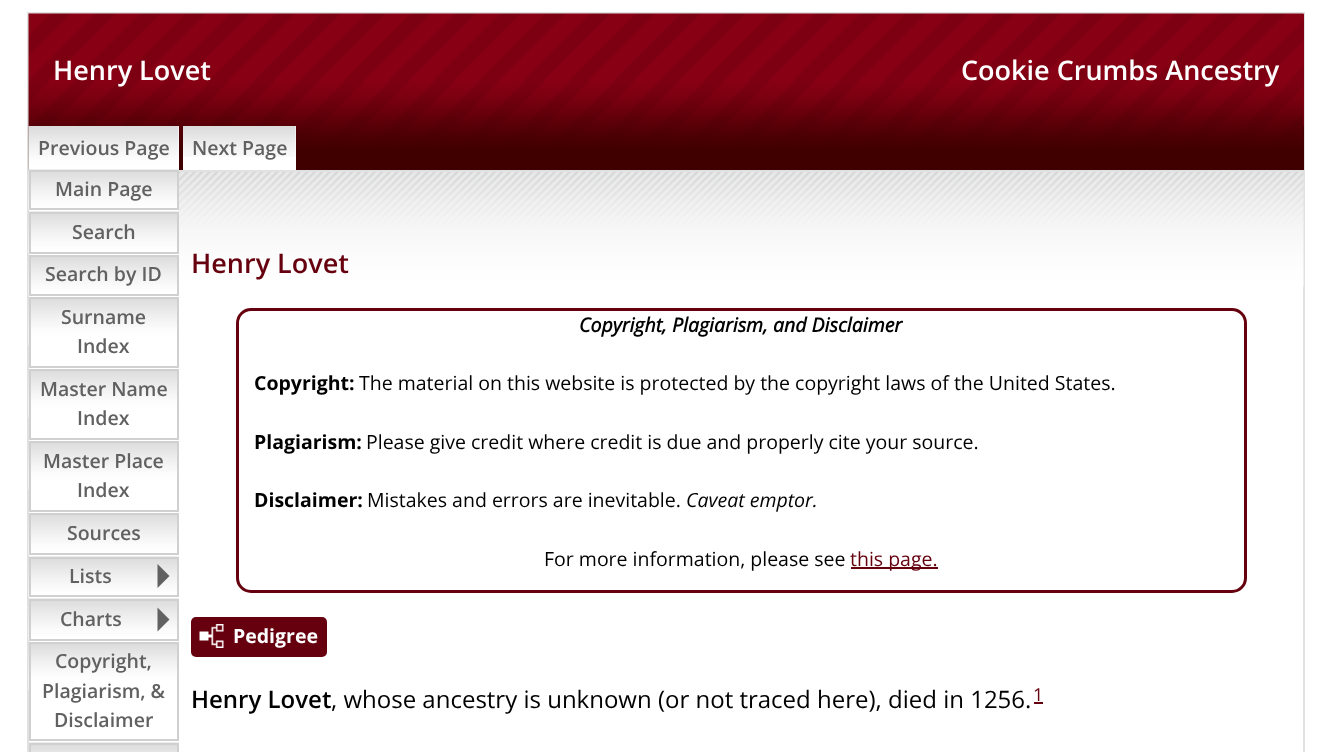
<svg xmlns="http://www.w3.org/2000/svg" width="1331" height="752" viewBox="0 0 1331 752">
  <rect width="100%" height="100%" fill="rgb(255,255,255)"/>
  <rect x="28" y="13" width="1276" height="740" fill="none" stroke="rgb(225,225,225)" stroke-width="2"/>
  <rect x="1303" y="14" width="1" height="112" fill="rgb(134,0,20)"/>
  <image x="28" y="13" width="1276" height="113" href="pic1.png"/>
  <g font-family="Open Sans" font-size="27" font-weight="600" fill="rgb(255,255,255)">
    <text x="53" y="80">Henry Lovet</text>
    <text x="961" y="80">Cookie Crumbs Ancestry</text>
  </g>
  <rect x="179" y="126" width="1125" height="44" fill="rgb(64,0,0)"/>
  <image x="28" y="126" width="1276" height="44" href="pic2.png"/>
  <rect x="29" y="126" width="150" height="44" fill="rgb(255,255,255)"/>
  <image x="28" y="126" width="151" height="44" href="pic3.png"/>
  <text x="38" y="155" font-family="Open Sans" font-size="19.5" font-weight="600" fill="rgb(97,97,97)">Previous Page</text>
  <rect x="183" y="126" width="113" height="44" fill="rgb(255,255,255)"/>
  <image x="183" y="126" width="113" height="31" href="pic4.png"/>
  <text x="192" y="155" font-family="Open Sans" font-size="19.5" font-weight="600" fill="rgb(97,97,97)">Next Page</text>
  <image x="178" y="172" width="1126" height="115" href="pic13.png"/>
  <image x="28" y="169" width="151" height="41" href="pic5.png"/>
  <rect x="30" y="171" width="148" height="38" fill="none" stroke="rgb(208,208,208)" stroke-width="2"/>
  <text x="55" y="196" font-family="Open Sans" font-size="19.5" font-weight="600" fill="rgb(97,97,97)">Main Page</text>
  <image x="28" y="211" width="151" height="43" href="pic6.png"/>
  <rect x="30" y="213" width="148" height="40" fill="none" stroke="rgb(208,208,208)" stroke-width="2"/>
  <text x="72" y="239" font-family="Open Sans" font-size="19.5" font-weight="600" fill="rgb(97,97,97)">Search</text>
  <image x="28" y="255" width="149" height="41" href="pic7.png"/>
  <rect x="30" y="256" width="148" height="39" fill="none" stroke="rgb(208,208,208)" stroke-width="2"/>
  <text x="45" y="281" font-family="Open Sans" font-size="19.5" font-weight="600" fill="rgb(97,97,97)">Search by ID</text>
  <image x="28" y="297" width="149" height="48" href="pic8.png"/>
  <rect x="30" y="298" width="148" height="69" fill="none" stroke="rgb(208,208,208)" stroke-width="2"/>
  <g font-family="Open Sans" font-size="19.5" font-weight="600" fill="rgb(97,97,97)">
    <text x="61" y="324">Surname</text>
    <text x="77" y="353">Index</text>
  </g>
  <image x="28" y="369" width="149" height="48" href="pic8.png"/>
  <rect x="30" y="370" width="148" height="69" fill="none" stroke="rgb(208,208,208)" stroke-width="2"/>
  <g font-family="Open Sans" font-size="19.5" font-weight="600" fill="rgb(97,97,97)">
    <text x="40" y="396">Master Name</text>
    <text x="77" y="425">Index</text>
  </g>
  <image x="28" y="441" width="149" height="48" href="pic8.png"/>
  <rect x="30" y="442" width="148" height="69" fill="none" stroke="rgb(208,208,208)" stroke-width="2"/>
  <g font-family="Open Sans" font-size="19.5" font-weight="600" fill="rgb(97,97,97)">
    <text x="43" y="468">Master Place</text>
    <text x="77" y="497">Index</text>
  </g>
  <image x="28" y="513" width="149" height="42" href="pic9.png"/>
  <rect x="30" y="514" width="148" height="40" fill="none" stroke="rgb(208,208,208)" stroke-width="2"/>
  <text x="67" y="540" font-family="Open Sans" font-size="19.5" font-weight="600" fill="rgb(97,97,97)">Sources</text>
  <image x="28" y="556" width="151" height="41" href="pic10.png"/>
  <rect x="30" y="558" width="148" height="38" fill="none" stroke="rgb(208,208,208)" stroke-width="2"/>
  <text x="69" y="583" font-family="Open Sans" font-size="19.5" font-weight="600" fill="rgb(97,97,97)">Lists</text>
  <path d="M157.5 588V564L169.5 576Z" fill="rgb(97,97,97)"/>
  <image x="28" y="598" width="151" height="43" href="pic11.png"/>
  <rect x="30" y="600" width="148" height="40" fill="none" stroke="rgb(208,208,208)" stroke-width="2"/>
  <text x="60" y="626" font-family="Open Sans" font-size="19.5" font-weight="600" fill="rgb(97,97,97)">Charts</text>
  <path d="M157.5 631.5V607.5L169.5 619.5Z" fill="rgb(97,97,97)"/>
  <image x="28" y="642" width="149" height="48" href="pic8.png"/>
  <rect x="30" y="643" width="148" height="97" fill="none" stroke="rgb(208,208,208)" stroke-width="2"/>
  <g font-family="Open Sans" font-size="19.5" font-weight="600" fill="rgb(97,97,97)">
    <text x="55" y="668">Copyright,</text>
    <text x="42" y="698">Plagiarism, &amp;</text>
    <text x="54" y="727">Disclaimer</text>
  </g>
  <image x="29" y="742" width="150" height="10" href="pic12.png"/>
  <rect x="30" y="744" width="148" height="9" fill="none" stroke="rgb(208,208,208)" stroke-width="2"/>
  <rect x="179" y="170" width="1125" height="2" fill="rgb(225,225,225)"/>
  <text x="191" y="273" font-family="Open Sans" font-size="27" font-weight="600" fill="rgb(102,0,15)">Henry Lovet</text>
  <rect x="237.5" y="309.5" width="1008" height="282" rx="13.5" fill="none" stroke="rgb(102,0,15)" stroke-width="3"/>
  <text x="579" y="332" font-family="Open Sans" font-size="19.5" font-weight="bold" font-style="italic" fill="rgb(0,0,0)">Copyright, Plagiarism, and Disclaimer</text>
  <text x="254" y="390" font-family="Open Sans" font-size="19.5" font-weight="bold" fill="rgb(0,0,0)">Copyright:</text>
  <text x="359" y="390" font-family="Open Sans" font-size="19.5" fill="rgb(0,0,0)">The material on this website is protected by the copyright laws of the United States.</text>
  <text x="254" y="449" font-family="Open Sans" font-size="19.5" font-weight="bold" fill="rgb(0,0,0)">Plagiarism:</text>
  <text x="366" y="449" font-family="Open Sans" font-size="19.5" fill="rgb(0,0,0)">Please give credit where credit is due and properly cite your source.</text>
  <text x="254" y="507" font-family="Open Sans" font-size="19.5" font-weight="bold" fill="rgb(0,0,0)">Disclaimer:</text>
  <text x="367" y="507" font-family="Open Sans" font-size="19.5" fill="rgb(0,0,0)">Mistakes and errors are inevitable.</text>
  <text x="686" y="507" font-family="Open Sans" font-size="19.5" font-style="italic" fill="rgb(0,0,0)">Caveat emptor.</text>
  <text x="544" y="566" font-family="Open Sans" font-size="19.5" fill="rgb(0,0,0)">For more information, please see</text>
  <rect x="851" y="567" width="87" height="2" fill="rgb(102,0,15)"/>
  <text x="850" y="566" font-family="Open Sans" font-size="19.5" fill="rgb(102,0,15)">this page.</text>
  <rect x="191" y="617" width="136" height="40" rx="5" fill="rgb(102,0,15)"/>
  <image x="199" y="624" width="25" height="24" href="pic14.png"/>
  <text x="233" y="643" font-family="Open Sans" font-size="19.5" font-weight="bold" fill="rgb(255,255,255)">Pedigree</text>
  <text x="191" y="708" font-family="Open Sans" font-size="24" font-weight="600" fill="rgb(0,0,0)">Henry Lovet</text>
  <text x="331" y="708" font-family="Open Sans" font-size="24" fill="rgb(0,0,0)">, whose ancestry is unknown (or not traced here), died in 1256.</text>
  <text x="1033" y="701" font-family="Open Sans" font-size="18" fill="rgb(102,0,15)">1</text>
  <rect x="1034" y="702" width="9" height="2" fill="rgb(102,0,15)"/>
</svg>
